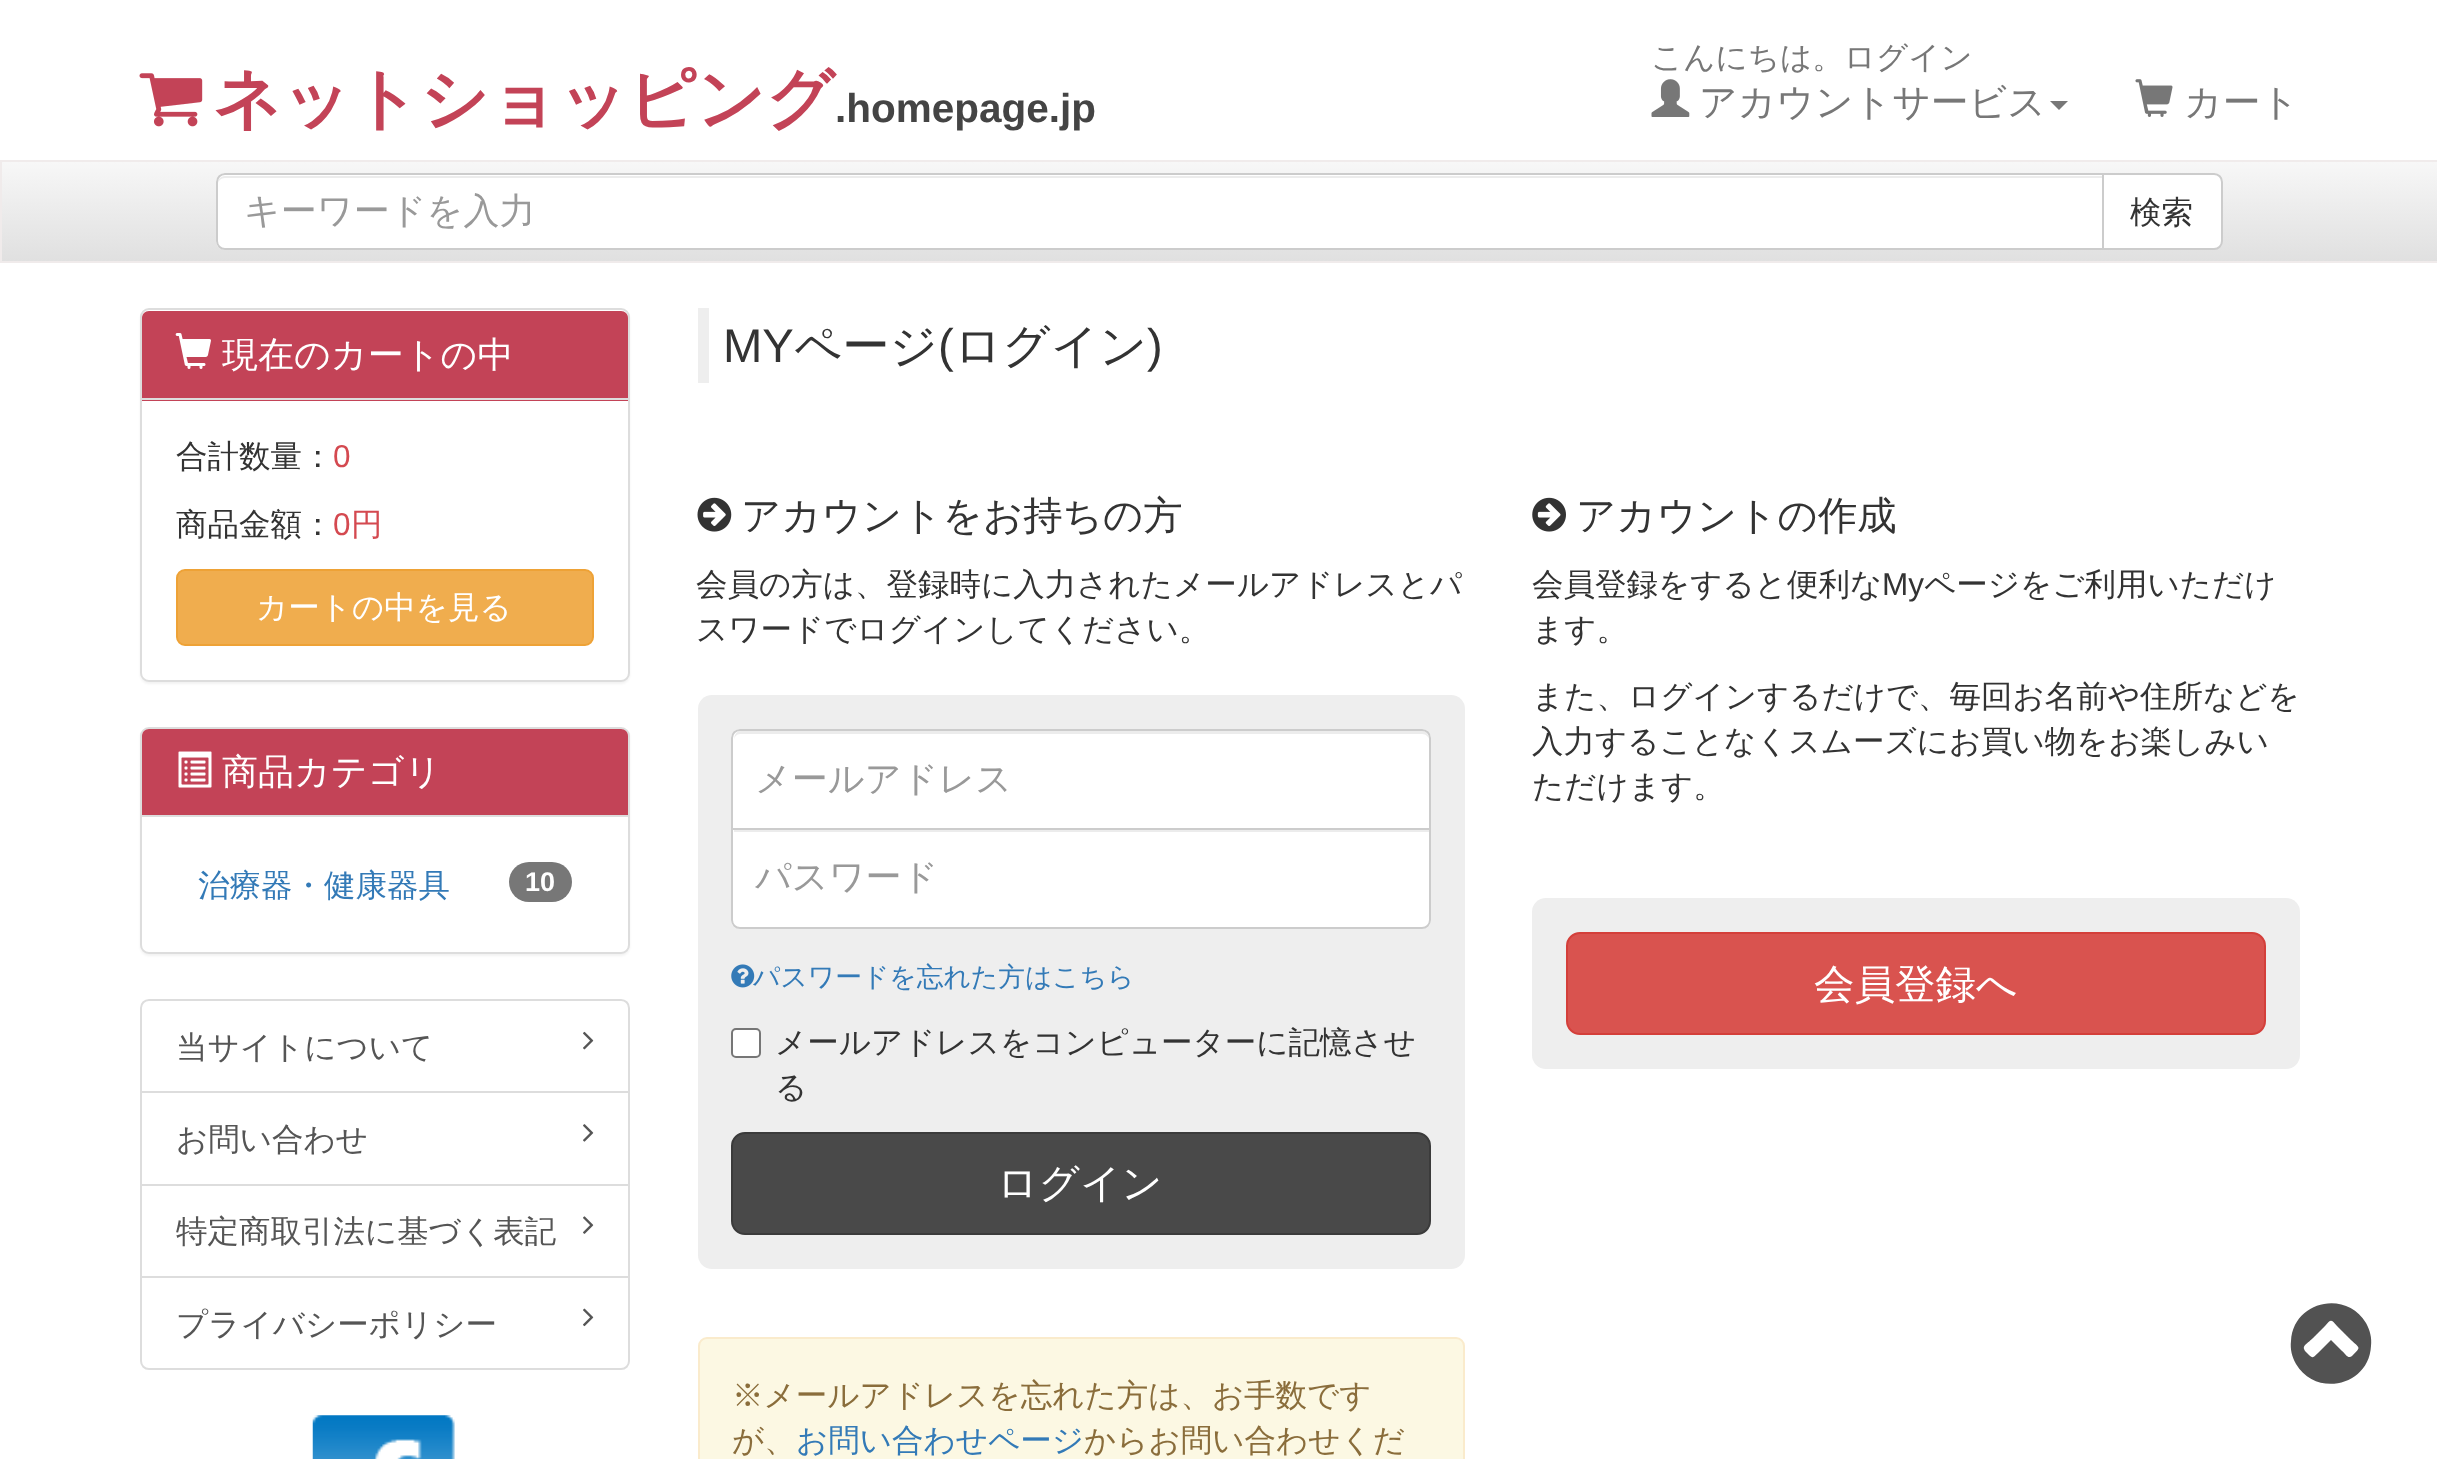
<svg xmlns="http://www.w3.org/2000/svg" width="2437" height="1459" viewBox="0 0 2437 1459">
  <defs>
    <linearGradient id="g1" gradientUnits="userSpaceOnUse" x1="1220" y1="162" x2="1220" y2="261"><stop offset="0" stop-color="rgb(247,247,247)"/><stop offset="1" stop-color="rgb(224,224,224)"/></linearGradient>
  </defs>
  <rect width="100%" height="100%" fill="rgb(255,255,255)"/>
  <image x="139" y="73" width="64" height="54" href="pic1.png"/>
  <text x="213" y="122" font-family="WenQuanYi Zen Hei" font-size="67.5" font-weight="bold" fill="rgb(195,67,87)">ネットショッピング</text>
  <text x="835" y="122" font-family="Liberation Sans" font-size="40.5" font-weight="bold" fill="rgb(68,68,68)">.homepage.jp</text>
  <text x="1651" y="68" font-family="WenQuanYi Zen Hei" font-size="31.5" font-weight="500" fill="rgb(119,119,119)">こんにちは。ログイン</text>
  <image x="1651" y="79" width="39" height="38" href="pic2.png"/>
  <text x="1699" y="115" font-family="WenQuanYi Zen Hei" font-size="37.75" font-weight="500" fill="rgb(119,119,119)">アカウントサービス</text>
  <path d="M2050 101H2068L2059 110Z" fill="rgb(119,119,119)"/>
  <image x="2135" y="79" width="38" height="38" href="pic3.png"/>
  <text x="2184" y="115" font-family="WenQuanYi Zen Hei" font-size="37.75" font-weight="500" fill="rgb(119,119,119)">カート</text>
  <rect x="2" y="162" width="2435" height="99" fill="url(#g1)"/>
  <rect x="1" y="161" width="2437" height="101" fill="none" stroke="rgb(240,235,235)" stroke-width="2"/>
  <path d="M2103 174H2214C2218.5 174 2222 177.5 2222 182V241C2222 245.5 2218.5 249 2214 249H2103Z" fill="rgb(255,255,255)" stroke="rgb(204,204,204)" stroke-width="2"/>
  <path d="M225 173H2104V250H225C220 250 216 246 216 241V182C216 177 220 173 225 173Z" fill="rgb(255,255,255)"/>
  <path d="M225 178H2102V176H225C220 176 218 180 218 184C218 181 221 178 225 178Z" fill="rgb(236,236,236)"/>
  <path d="M225 174H2103V249H225C220.5 249 217 245.5 217 241V182C217 177.5 220.5 174 225 174Z" fill="none" stroke="rgb(204,204,204)" stroke-width="2"/>
  <text x="244" y="223" font-family="WenQuanYi Zen Hei" font-size="36" font-weight="500" fill="rgb(153,153,153)">キーワードを入力</text>
  <text x="2130" y="223" font-family="WenQuanYi Zen Hei" font-size="31.5" font-weight="500" fill="rgb(51,51,51)">検索</text>
  <rect x="140" y="311" width="490" height="373" rx="9" fill="rgba(0,0,0,0.05)" filter="blur(1px)"/>
  <rect x="141" y="309" width="488" height="372" rx="8" fill="rgb(255,255,255)" stroke="rgb(221,221,221)" stroke-width="2"/>
  <path d="M149 311H621C625 311 628 314 628 318V401H142V318C142 314 145 311 149 311Z" fill="rgb(195,67,87)"/>
  <rect x="142" y="398" width="486" height="2" fill="rgb(221,221,221)"/>
  <image x="175" y="333" width="36" height="36" href="pic4.png"/>
  <text x="222" y="367" font-family="WenQuanYi Zen Hei" font-size="36" font-weight="500" fill="rgb(255,255,255)">現在のカートの中</text>
  <text x="176" y="467" font-family="WenQuanYi Zen Hei" font-size="31.5" font-weight="500" fill="rgb(51,51,51)">合計数量：</text>
  <text x="333" y="467" font-family="Liberation Sans" font-size="31.5" fill="rgb(212,73,80)">0</text>
  <text x="176" y="535" font-family="WenQuanYi Zen Hei" font-size="31.5" font-weight="500" fill="rgb(51,51,51)">商品金額：</text>
  <text x="333" y="535" font-family="Liberation Sans" font-size="31.5" fill="rgb(212,73,80)">0</text>
  <text x="351" y="535" font-family="WenQuanYi Zen Hei" font-size="31.5" font-weight="500" fill="rgb(212,73,80)">円</text>
  <rect x="177" y="570" width="416" height="75" rx="8" fill="rgb(240,173,78)" stroke="rgb(238,162,54)" stroke-width="2"/>
  <text x="256" y="618" font-family="WenQuanYi Zen Hei" font-size="31.5" font-weight="500" fill="rgb(255,255,255)">カートの中を見る</text>
  <rect x="140" y="729" width="490" height="227" rx="9" fill="rgba(0,0,0,0.05)" filter="blur(1px)"/>
  <rect x="141" y="728" width="488" height="225" rx="8" fill="rgb(255,255,255)" stroke="rgb(221,221,221)" stroke-width="2"/>
  <path d="M149 729H621C625 729 628 732 628 736V817H142V736C142 732 145 729 149 729Z" fill="rgb(195,67,87)"/>
  <rect x="142" y="815" width="486" height="2" fill="rgb(221,221,221)"/>
  <image x="178" y="751" width="34" height="37" href="pic5.png"/>
  <text x="222" y="784" font-family="WenQuanYi Zen Hei" font-size="36" font-weight="500" fill="rgb(255,255,255)">商品カテゴリ</text>
  <text x="198" y="896" font-family="WenQuanYi Zen Hei" font-size="31.5" font-weight="500" fill="rgb(51,122,183)">治療器・健康器具</text>
  <rect x="509" y="862" width="63" height="40" rx="20" fill="rgb(119,119,119)"/>
  <text x="525" y="891" font-family="Liberation Sans" font-size="27" font-weight="bold" fill="rgb(255,255,255)">10</text>
  <path d="M149 1000H621C625.5 1000 629 1003.5 629 1008V1093H141V1008C141 1003.5 144.5 1000 149 1000Z" fill="none" stroke="rgb(221,221,221)" stroke-width="2"/>
  <text x="176" y="1058" font-family="WenQuanYi Zen Hei" font-size="31.5" font-weight="500" fill="rgb(85,85,85)">当サイトについて</text>
  <image x="583" y="1031" width="11" height="19" href="pic6.png"/>
  <rect x="142" y="1093" width="486" height="1" fill="rgb(255,255,255)"/>
  <rect x="141" y="1092" width="488" height="93" fill="none" stroke="rgb(221,221,221)" stroke-width="2"/>
  <text x="176" y="1150" font-family="WenQuanYi Zen Hei" font-size="31.5" font-weight="500" fill="rgb(85,85,85)">お問い合わせ</text>
  <image x="583" y="1124" width="11" height="18" href="pic7.png"/>
  <rect x="141" y="1185" width="488" height="92" fill="none" stroke="rgb(221,221,221)" stroke-width="2"/>
  <text x="176" y="1242" font-family="WenQuanYi Zen Hei" font-size="31.5" font-weight="500" fill="rgb(85,85,85)">特定商取引法に基づく表記</text>
  <image x="583" y="1216" width="11" height="18" href="pic8.png"/>
  <path d="M141 1277H629V1361C629 1365.5 625.5 1369 621 1369H149C144.5 1369 141 1365.5 141 1361Z" fill="rgb(255,255,255)" stroke="rgb(221,221,221)" stroke-width="2"/>
  <text x="176" y="1335" font-family="WenQuanYi Zen Hei" font-size="31.5" font-weight="500" fill="rgb(85,85,85)">プライバシーポリシー</text>
  <image x="583" y="1308" width="11" height="19" href="pic9.png"/>
  <image x="312" y="1415" width="143" height="44" href="pic10.png"/>
  <rect x="698" y="308" width="11" height="75" fill="rgb(238,238,238)"/>
  <text x="723" y="362" font-family="Liberation Sans" font-size="47.25" fill="rgb(51,51,51)">MY</text>
  <text x="794" y="362" font-family="WenQuanYi Zen Hei" font-size="47.25" font-weight="500" fill="rgb(51,51,51)">ページ</text>
  <text x="938" y="362" font-family="Liberation Sans" font-size="47.25" fill="rgb(51,51,51)">(</text>
  <text x="954" y="362" font-family="WenQuanYi Zen Hei" font-size="47.25" font-weight="500" fill="rgb(51,51,51)">ログイン</text>
  <text x="1147" y="362" font-family="Liberation Sans" font-size="47.25" fill="rgb(51,51,51)">)</text>
  <image x="697" y="497" width="35" height="35" href="pic11.png"/>
  <text x="741" y="529" font-family="WenQuanYi Zen Hei" font-size="39.4" font-weight="500" fill="rgb(51,51,51)">アカウントをお持ちの方</text>
  <g font-family="WenQuanYi Zen Hei" font-size="31.5" font-weight="500" fill="rgb(51,51,51)">
    <text>
      <tspan x="696" y="595">会員の方は、登録時に入力されたメールアドレスとパ</tspan>
      <tspan x="696" y="640">スワードでログインしてください。</tspan>
    </text>
  </g>
  <rect x="698" y="695" width="767" height="574" rx="14" fill="rgb(238,238,238)"/>
  <path d="M740 729H1422C1427 729 1431 733 1431 738V830H731V738C731 733 735 729 740 729Z" fill="rgb(255,255,255)"/>
  <path d="M740 734H1422C1426 734 1429 737 1429 740C1429 736 1427 731 1422 731H741C736 731 734 736 734 740C734 737 737 734 740 734Z" fill="rgb(236,236,236)"/>
  <path d="M740 730H1422C1426.5 730 1430 733.5 1430 738V829H732V738C732 733.5 735.5 730 740 730Z" fill="none" stroke="rgb(204,204,204)" stroke-width="2"/>
  <text x="755" y="791" font-family="WenQuanYi Zen Hei" font-size="36" font-weight="500" fill="rgb(153,153,153)">メールアドレス</text>
  <path d="M731 828H1431V920C1431 925 1427 929 1422 929H740C735 929 731 925 731 920Z" fill="rgb(255,255,255)"/>
  <rect x="734" y="830" width="695" height="2" fill="rgb(236,236,236)"/>
  <path d="M732 829H1430V920C1430 924.5 1426.5 928 1422 928H740C735.5 928 732 924.5 732 920Z" fill="none" stroke="rgb(204,204,204)" stroke-width="2"/>
  <text x="755" y="889" font-family="WenQuanYi Zen Hei" font-size="36" font-weight="500" fill="rgb(153,153,153)">パスワード</text>
  <image x="731" y="964" width="24" height="24" href="pic12.png"/>
  <text x="753" y="986" font-family="WenQuanYi Zen Hei" font-size="26.75" font-weight="500" fill="rgb(51,122,183)">パスワードを忘れた方はこちら</text>
  <rect x="732" y="1029" width="28" height="28" rx="4" fill="rgb(255,255,255)" stroke="rgb(118,118,118)" stroke-width="2"/>
  <g font-family="WenQuanYi Zen Hei" font-size="31.5" font-weight="500" fill="rgb(51,51,51)">
    <text>
      <tspan x="775" y="1053">メールアドレスをコンピューターに記憶させ</tspan>
      <tspan x="775" y="1098">る</tspan>
    </text>
  </g>
  <rect x="732" y="1133" width="698" height="101" rx="13" fill="rgb(73,73,73)" stroke="rgb(59,59,59)" stroke-width="2"/>
  <text x="997" y="1197" font-family="WenQuanYi Zen Hei" font-size="40.5" font-weight="500" fill="rgb(255,255,255)">ログイン</text>
  <rect x="699" y="1338" width="765" height="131" rx="8" fill="rgb(252,248,227)" stroke="rgb(250,235,204)" stroke-width="2"/>
  <g font-family="WenQuanYi Zen Hei" font-size="31.5" font-weight="500" fill="rgb(138,109,59)">
    <text>
      <tspan x="732" y="1406">※メールアドレスを忘れた方は、お手数です</tspan>
      <tspan x="732" y="1451">が、</tspan>
    </text>
  </g>
  <text x="796" y="1451" font-family="WenQuanYi Zen Hei" font-size="31.5" font-weight="500" fill="rgb(51,122,183)">お問い合わせページ</text>
  <text x="1084" y="1451" font-family="WenQuanYi Zen Hei" font-size="31.5" font-weight="500" fill="rgb(138,109,59)">からお問い合わせくだ</text>
  <image x="1532" y="497" width="34" height="35" href="pic13.png"/>
  <text x="1576" y="529" font-family="WenQuanYi Zen Hei" font-size="39.4" font-weight="500" fill="rgb(51,51,51)">アカウントの作成</text>
  <text x="1532" y="595" font-family="WenQuanYi Zen Hei" font-size="31.5" font-weight="500" fill="rgb(51,51,51)">会員登録をすると便利な</text>
  <text x="1882" y="595" font-family="Liberation Sans" font-size="31.5" fill="rgb(51,51,51)">My</text>
  <g font-family="WenQuanYi Zen Hei" font-size="31.5" font-weight="500" fill="rgb(51,51,51)">
    <text x="1924" y="595">ページをご利用いただけ</text>
    <text x="1532" y="640">ます。</text>
    <text>
      <tspan x="1532" y="707">また、ログインするだけで、毎回お名前や住所などを</tspan>
      <tspan x="1532" y="752">入力することなくスムーズにお買い物をお楽しみい</tspan>
      <tspan x="1532" y="797">ただけます。</tspan>
    </text>
  </g>
  <rect x="1532" y="898" width="768" height="171" rx="14" fill="rgb(238,238,238)"/>
  <rect x="1567" y="933" width="698" height="101" rx="13" fill="rgb(217,83,79)" stroke="rgb(212,63,58)" stroke-width="2"/>
  <text x="1814" y="998" font-family="WenQuanYi Zen Hei" font-size="40.5" font-weight="500" fill="rgb(255,255,255)">会員登録へ</text>
  <path d="M2352 1356C2362 1346 2360 1349 2349 1338L2337 1326C2331 1319 2331 1319 2325 1326L2313 1338C2306 1345 2300 1346 2307 1353C2312 1358 2312 1359 2318 1353L2331 1340L2342 1351C2344 1352 2348 1360 2352 1356ZM2366 1323C2370 1330 2372 1338 2371 1346C2369 1386 2316 1398 2296 1364C2292 1357 2290 1349 2291 1341C2293 1301 2346 1289 2366 1323Z" fill="rgb(82,82,82)"/>
</svg>
